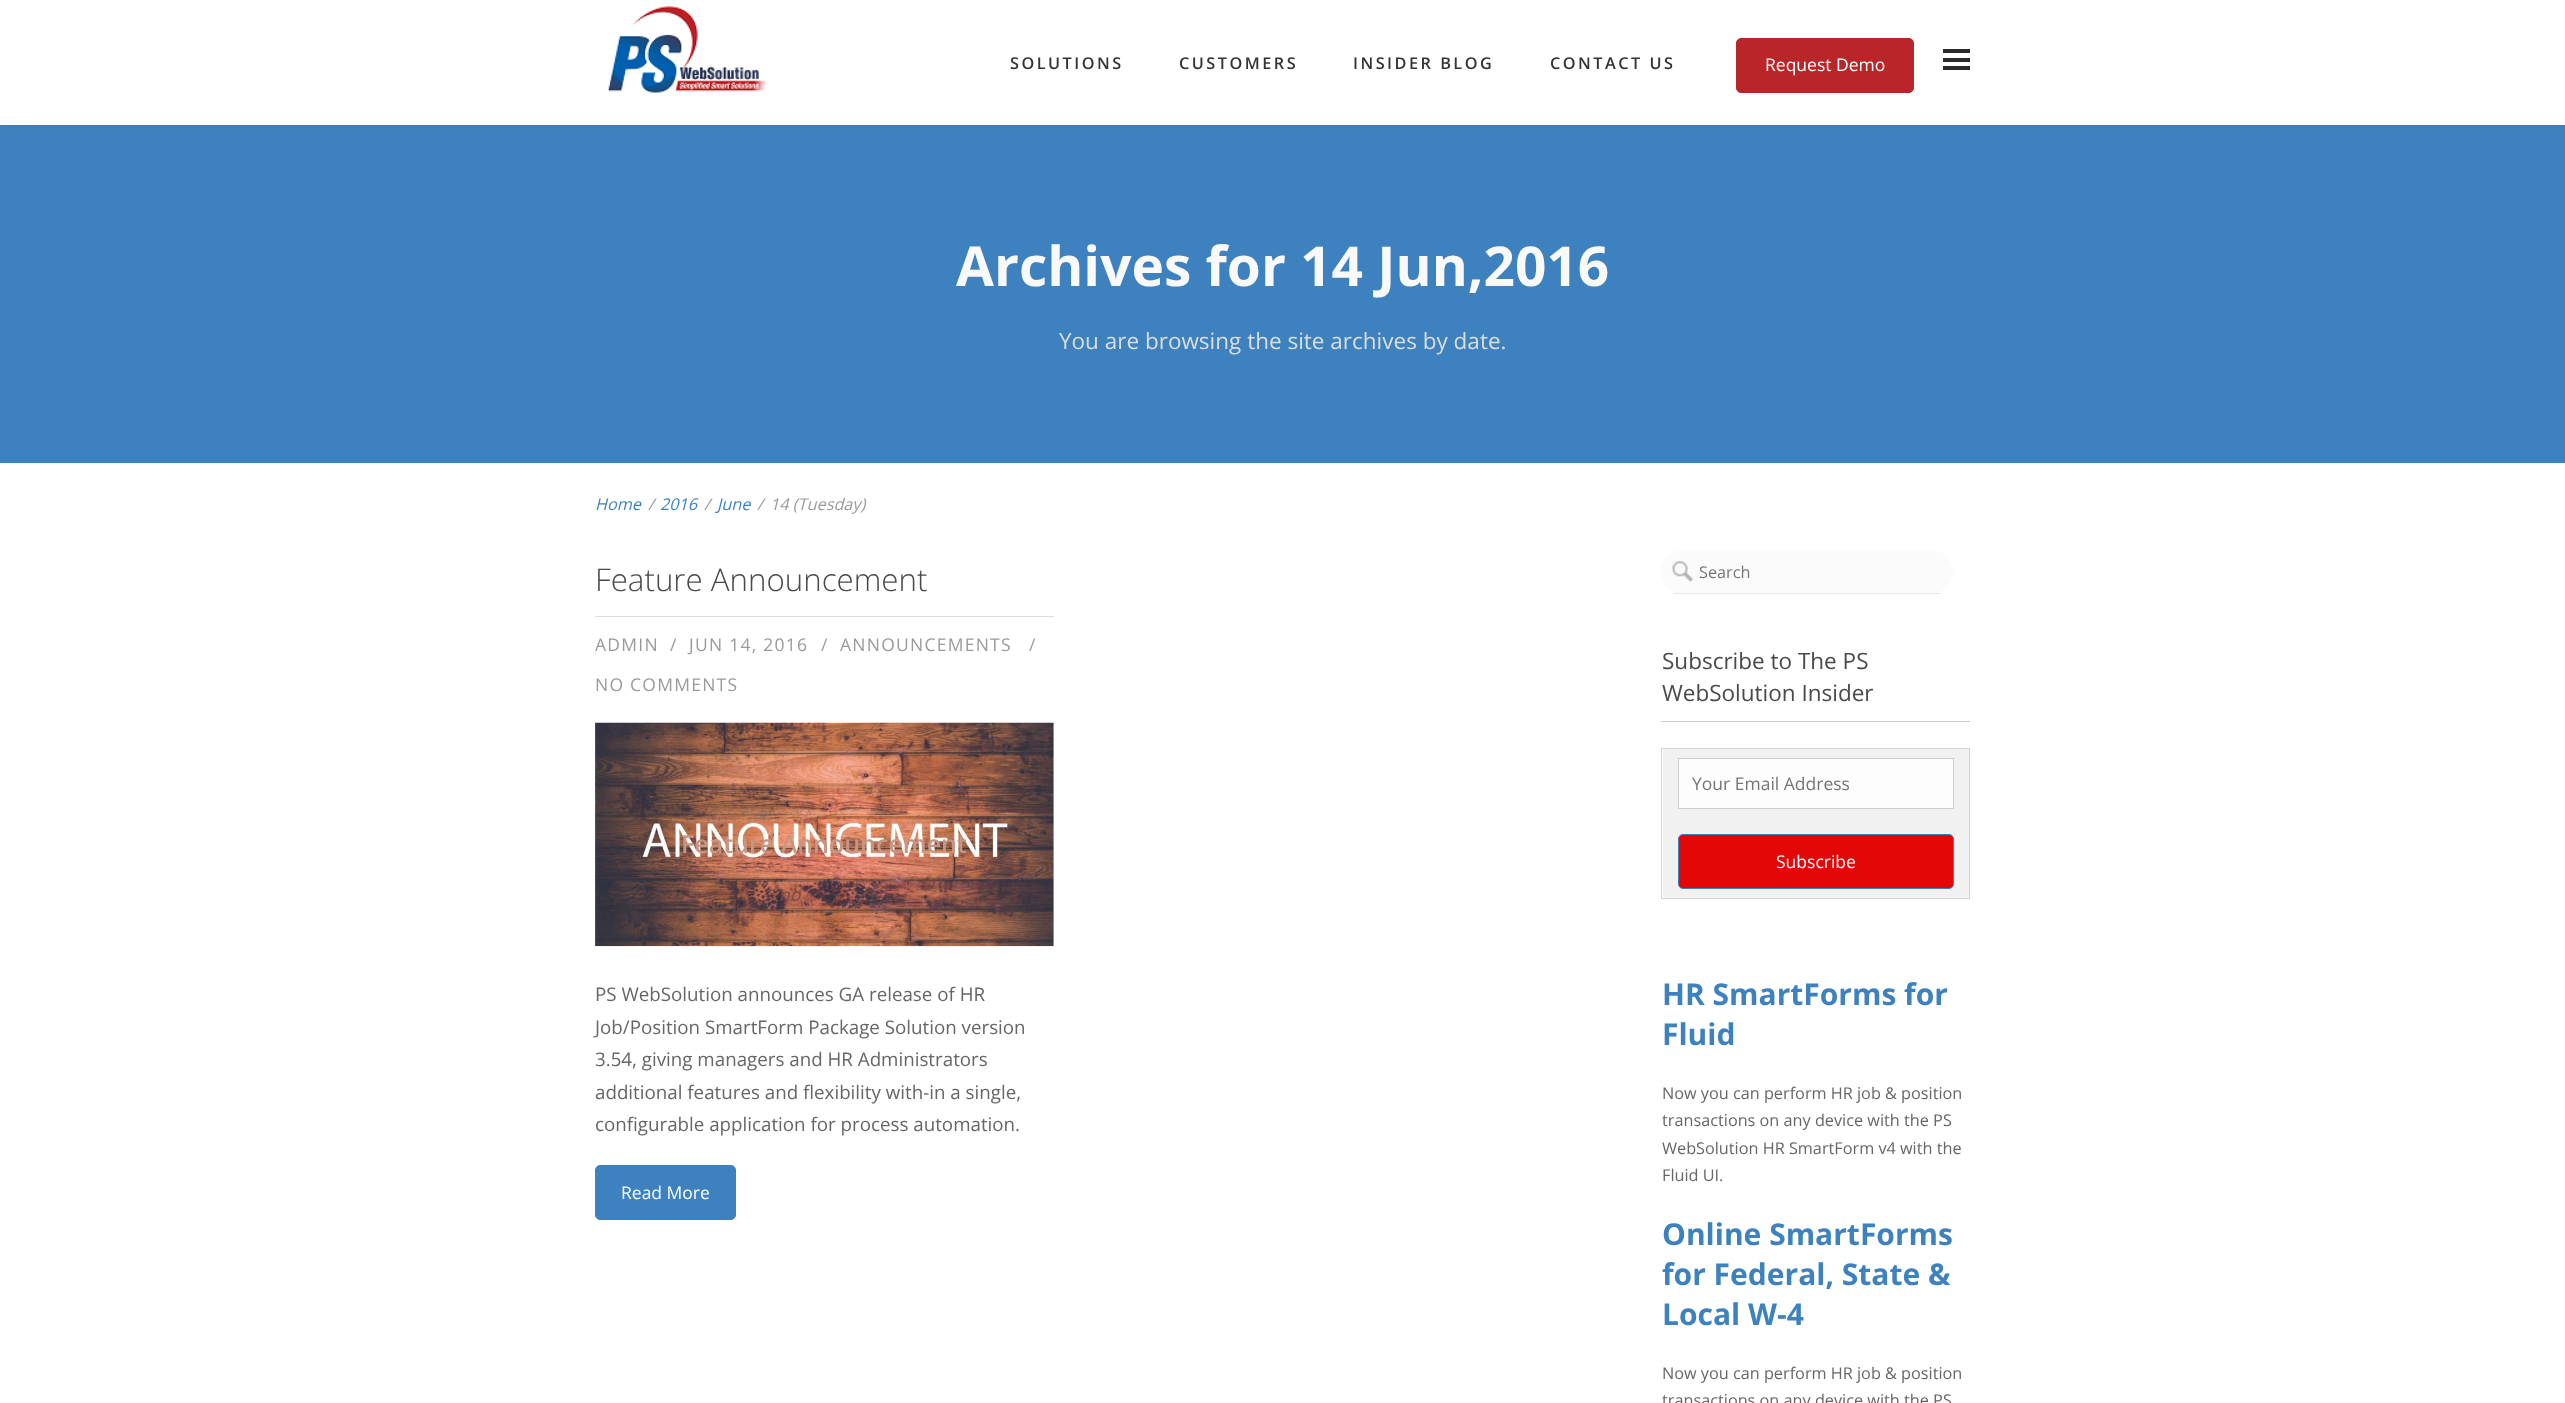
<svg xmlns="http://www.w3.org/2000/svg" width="2565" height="1403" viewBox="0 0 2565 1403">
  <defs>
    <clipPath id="clip1"><rect x="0" y="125" width="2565" height="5"/></clipPath>
  </defs>
  <rect width="100%" height="100%" fill="rgb(255,255,255)"/>
  <rect x="0" y="125" width="2565" height="338" fill="rgb(61,130,191)"/>
  <g clip-path="url(#clip1)">
    <rect x="0" y="1" width="2565" height="125" fill="rgba(100,100,100,0.3)" filter="blur(3px)"/>
  </g>
  <image x="608" y="6" width="160" height="87" href="pic1.png"/>
  <g font-family="Open Sans" font-size="16.25" font-weight="600" letter-spacing="2.5" fill="rgb(51,51,51)">
    <text x="1010" y="69">SOLUTIONS</text>
    <text x="1179" y="69">CUSTOMERS</text>
    <text x="1353" y="69">INSIDER BLOG</text>
    <text x="1550" y="69">CONTACT US</text>
  </g>
  <rect x="1736.5" y="38.5" width="177" height="54" rx="4.5" fill="rgb(186,37,41)" stroke="rgb(186,37,41)"/>
  <text x="1765" y="71" font-family="Open Sans" font-size="17.5" fill="rgb(255,255,255)">Request Demo</text>
  <rect x="1943" y="58" width="27" height="4" fill="rgb(41,43,45)"/>
  <rect x="1943" y="49" width="27" height="4" fill="rgb(41,43,45)"/>
  <rect x="1943" y="66" width="27" height="4" fill="rgb(41,43,45)"/>
  <text x="956" y="286" font-family="Open Sans" font-size="55" font-weight="bold" fill="rgb(249,249,249)">Archives for 14 Jun,2016</text>
  <text x="1059" y="349" font-family="Open Sans" font-size="22.5" fill="rgb(221,221,221)">You are browsing the site archives by date.</text>
  <text x="595" y="510" font-family="Open Sans" font-size="16.25" font-style="italic" fill="rgb(61,130,191)">Home</text>
  <text x="648" y="510" font-family="Open Sans" font-size="16.25" font-style="italic" fill="rgb(154,154,154)">/</text>
  <text x="660" y="510" font-family="Open Sans" font-size="16.25" font-style="italic" fill="rgb(61,130,191)">2016</text>
  <text x="704" y="510" font-family="Open Sans" font-size="16.25" font-style="italic" fill="rgb(154,154,154)">/</text>
  <text x="717" y="510" font-family="Open Sans" font-size="16.25" font-style="italic" fill="rgb(61,130,191)">June</text>
  <g font-family="Open Sans" font-size="16.25" font-style="italic" fill="rgb(154,154,154)">
    <text x="757" y="510">/</text>
    <text x="770" y="510">14 (Tuesday)</text>
  </g>
  <text x="595" y="591" font-family="Open Sans" font-size="31.25" font-weight="300" fill="rgb(75,73,73)">Feature Announcement</text>
  <rect x="595" y="616" width="459" height="1" fill="rgb(221,221,221)"/>
  <g font-family="Open Sans" font-size="17.5" letter-spacing="1.25" fill="rgb(154,154,154)">
    <text x="595" y="651">ADMIN</text>
    <text x="670" y="651">/</text>
    <text x="689" y="651">JUN 14, 2016</text>
    <text x="821" y="651">/</text>
    <text x="840" y="651">ANNOUNCEMENTS</text>
    <text x="1029" y="651">/</text>
    <text x="595" y="691">NO COMMENTS</text>
  </g>
  <image x="595" y="722" width="459" height="225" href="pic2.png"/>
  <text x="681" y="853" font-family="Open Sans" font-size="25" font-weight="600" fill="rgb(199,150,130)">Feature Announcement</text>
  <text x="779" y="901" font-family="Open Sans" font-size="17.5" font-style="italic" fill="rgb(123,75,72)">no</text>
  <g font-family="Open Sans" font-size="18.75" fill="rgb(102,102,102)">
    <text>
      <tspan x="595" y="1001">PS WebSolution announces GA release of HR</tspan>
      <tspan x="595" y="1034">Job/Position SmartForm Package Solution version</tspan>
      <tspan x="595" y="1066">3.54, giving managers and HR Administrators</tspan>
      <tspan x="595" y="1099">additional features and flexibility with-in a single,</tspan>
      <tspan x="595" y="1131">configurable application for process automation.</tspan>
    </text>
  </g>
  <rect x="595.5" y="1165.5" width="140" height="54" rx="4.5" fill="rgb(61,130,191)" stroke="rgb(61,130,191)"/>
  <text x="621" y="1199" font-family="Open Sans" font-size="17.5" fill="rgb(255,255,255)">Read More</text>
  <rect x="1661" y="550" width="292" height="44" rx="22" fill="rgb(251,251,251)"/>
  <image x="1672" y="561" width="21" height="21" href="pic3.png"/>
  <rect x="1673" y="593" width="268" height="1" fill="rgba(196,196,196,0.4)"/>
  <text x="1699" y="578" font-family="Open Sans" font-size="16.25" fill="rgb(117,117,117)">Search</text>
  <rect x="1661" y="721" width="309" height="1" fill="rgb(204,204,204)"/>
  <g font-family="Open Sans" font-size="22.5" fill="rgb(75,73,73)">
    <text>
      <tspan x="1662" y="669">Subscribe to The PS</tspan>
      <tspan x="1662" y="701">WebSolution Insider</tspan>
    </text>
  </g>
  <rect x="1663" y="749" width="306" height="149" fill="rgb(241,241,241)"/>
  <rect x="1661" y="748" width="309" height="1" fill="rgb(212,212,212)"/>
  <rect x="1969" y="748" width="1" height="151" fill="rgb(212,212,212)"/>
  <rect x="1661" y="898" width="309" height="1" fill="rgb(212,212,212)"/>
  <rect x="1661" y="748" width="1" height="151" fill="rgb(212,212,212)"/>
  <rect x="1678.5" y="758.5" width="275" height="50" fill="rgb(253,253,253)" stroke="rgb(204,204,204)"/>
  <text x="1692" y="790" font-family="Open Sans" font-size="17.5" fill="rgb(117,117,117)">Your Email Address</text>
  <rect x="1678.5" y="834.5" width="275" height="54" rx="4.5" fill="rgb(227,7,7)" stroke="rgb(61,130,191)"/>
  <text x="1776" y="868" font-family="Open Sans" font-size="17.5" fill="rgb(255,255,255)">Subscribe</text>
  <g font-family="Open Sans" font-size="30" font-weight="bold" fill="rgb(61,130,191)">
    <text>
      <tspan x="1662" y="1005">HR SmartForms for</tspan>
      <tspan x="1662" y="1045">Fluid</tspan>
    </text>
  </g>
  <g font-family="Open Sans" font-size="16.25" fill="rgb(102,102,102)">
    <text>
      <tspan x="1662" y="1099">Now you can perform HR job &amp; position</tspan>
      <tspan x="1662" y="1126">transactions on any device with the PS</tspan>
      <tspan x="1662" y="1154">WebSolution HR SmartForm v4 with the</tspan>
      <tspan x="1662" y="1181">Fluid UI.</tspan>
    </text>
  </g>
  <g font-family="Open Sans" font-size="30" font-weight="bold" fill="rgb(61,130,191)">
    <text>
      <tspan x="1662" y="1245">Online SmartForms</tspan>
      <tspan x="1662" y="1285">for Federal, State &amp;</tspan>
      <tspan x="1662" y="1325">Local W-4</tspan>
    </text>
  </g>
  <g font-family="Open Sans" font-size="16.25" fill="rgb(102,102,102)">
    <text>
      <tspan x="1662" y="1379">Now you can perform HR job &amp; position</tspan>
      <tspan x="1662" y="1406">transactions on any device with the PS</tspan>
    </text>
  </g>
</svg>
